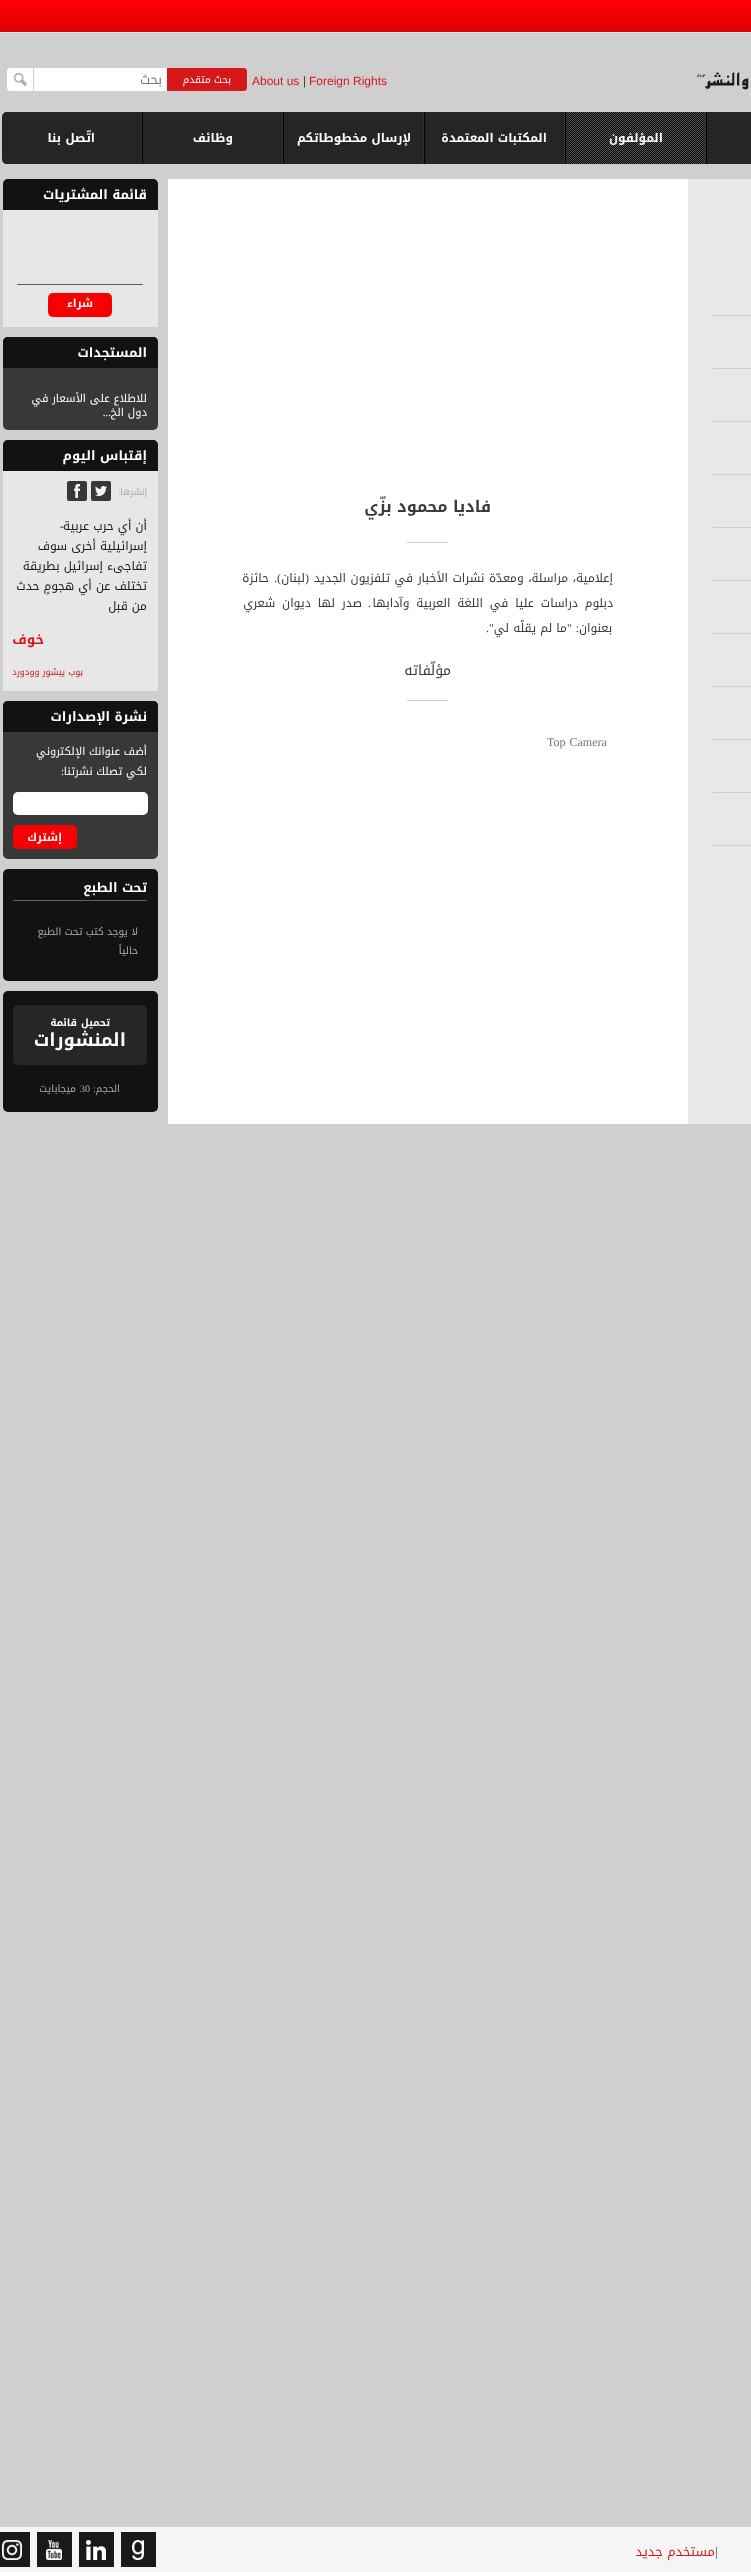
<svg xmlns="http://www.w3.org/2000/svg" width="751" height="2572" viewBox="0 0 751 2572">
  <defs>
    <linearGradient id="g1" gradientUnits="userSpaceOnUse" x1="495" y1="0" x2="495" y2="32"><stop offset="0" stop-color="rgb(255,0,4)"/><stop offset="1" stop-color="rgb(219,0,3)"/></linearGradient>
  </defs>
  <rect width="100%" height="100%" fill="rgb(207,207,207)"/>
  <rect x="0" y="0" width="751" height="32" fill="url(#g1)"/>
  <rect x="0" y="32" width="751" height="1" fill="rgb(230,230,230)"/>
  <image x="697" y="72" width="52" height="18" href="pic1.png"/>
  <text x="309" y="85" font-family="Liberation Sans" font-size="12" fill="rgb(214,24,27)">Foreign Rights</text>
  <text x="303" y="85" font-family="Liberation Sans" font-size="12" fill="rgb(59,59,59)">|</text>
  <text x="252" y="85" font-family="Liberation Sans" font-size="12" fill="rgb(214,24,27)">About us</text>
  <path d="M167 68H244C245.5 68 247 69.5 247 71V88C247 89.5 245.5 91 244 91H167Z" fill="rgb(214,24,27)"/>
  <text x="231" y="83" font-family="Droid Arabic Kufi" font-size="10" direction="rtl" fill="rgb(255,255,255)">بحث متقدم</text>
  <rect x="34" y="68" width="133" height="23" fill="rgb(255,255,255)"/>
  <text x="162" y="84" font-family="Droid Arabic Kufi" font-size="13" direction="rtl" fill="rgb(117,117,117)">بحث</text>
  <path d="M10 68H34V91H10C8.5 91 7 89.5 7 88V71C7 69.5 8.5 68 10 68Z" fill="rgb(255,255,255)"/>
  <image x="14" y="73" width="13" height="13" href="pic2.png"/>
  <rect x="33" y="68" width="1" height="23" fill="rgb(210,210,210)"/>
  <rect x="707" y="112" width="44" height="52" fill="rgb(37,37,37)"/>
  <rect x="706" y="112" width="1" height="52" fill="rgb(2,2,2)"/>
  <rect x="705" y="112" width="1" height="52" fill="rgb(48,48,48)"/>
  <image x="566" y="112" width="139" height="52" href="pic3.png"/>
  <text x="663" y="142" font-family="Droid Arabic Kufi" font-size="12" font-weight="bold" direction="rtl" fill="rgb(255,255,255)">المؤلفون</text>
  <rect x="565" y="112" width="1" height="52" fill="rgb(2,2,2)"/>
  <rect x="564" y="112" width="1" height="52" fill="rgb(48,48,48)"/>
  <rect x="425" y="112" width="139" height="52" fill="rgb(37,37,37)"/>
  <text x="547" y="142" font-family="Droid Arabic Kufi" font-size="12" font-weight="bold" direction="rtl" fill="rgb(255,255,255)">المكتبات المعتمدة</text>
  <rect x="424" y="112" width="1" height="52" fill="rgb(2,2,2)"/>
  <rect x="423" y="112" width="1" height="52" fill="rgb(48,48,48)"/>
  <rect x="284" y="112" width="139" height="52" fill="rgb(37,37,37)"/>
  <text x="411" y="142" font-family="Droid Arabic Kufi" font-size="12" font-weight="bold" direction="rtl" fill="rgb(255,255,255)">لإرسال مخطوطاتكم</text>
  <rect x="283" y="112" width="1" height="52" fill="rgb(2,2,2)"/>
  <rect x="282" y="112" width="1" height="52" fill="rgb(48,48,48)"/>
  <rect x="143" y="112" width="139" height="52" fill="rgb(37,37,37)"/>
  <text x="233" y="142" font-family="Droid Arabic Kufi" font-size="12" font-weight="bold" direction="rtl" fill="rgb(255,255,255)">وظائف</text>
  <rect x="142" y="112" width="1" height="52" fill="rgb(2,2,2)"/>
  <rect x="141" y="112" width="1" height="52" fill="rgb(48,48,48)"/>
  <path d="M7 112H141V164H7C4 164 2 162 2 159V117C2 114 4 112 7 112Z" fill="rgb(37,37,37)"/>
  <g font-family="Droid Arabic Kufi" font-size="12" font-weight="bold" direction="rtl" fill="rgb(255,255,255)">
    <text x="95" y="142">اتّصل</text>
    <text x="61" y="142">بنا</text>
  </g>
  <rect x="168" y="179" width="520" height="945" fill="rgb(255,255,255)"/>
  <rect x="688" y="179" width="63" height="945" fill="rgb(232,232,232)"/>
  <rect x="713" y="315" width="38" height="1" fill="rgb(207,207,207)"/>
  <rect x="713" y="368" width="38" height="1" fill="rgb(207,207,207)"/>
  <rect x="713" y="421" width="38" height="1" fill="rgb(207,207,207)"/>
  <rect x="713" y="474" width="38" height="1" fill="rgb(207,207,207)"/>
  <rect x="713" y="527" width="38" height="1" fill="rgb(207,207,207)"/>
  <rect x="713" y="580" width="38" height="1" fill="rgb(207,207,207)"/>
  <rect x="713" y="633" width="38" height="1" fill="rgb(207,207,207)"/>
  <rect x="713" y="686" width="38" height="1" fill="rgb(207,207,207)"/>
  <rect x="713" y="739" width="38" height="1" fill="rgb(207,207,207)"/>
  <rect x="713" y="792" width="38" height="1" fill="rgb(207,207,207)"/>
  <rect x="713" y="845" width="38" height="1" fill="rgb(207,207,207)"/>
  <text x="491" y="512" font-family="Droid Arabic Kufi" font-size="16" font-weight="bold" direction="rtl" fill="rgb(59,59,59)">فاديا محمود بزّي</text>
  <rect x="407" y="542" width="41" height="1" fill="rgb(207,207,207)"/>
  <text x="613" y="582" word-spacing="0.5" font-family="Droid Arabic Kufi" font-size="12" direction="rtl" fill="rgb(59,59,59)">إعلامية، مراسلة، ومعدّة نشرات الأخبار في تلفزيون الجديد</text>
  <text x="309" y="582" font-family="Liberation Serif" font-size="12" direction="rtl" fill="rgb(59,59,59)">(</text>
  <text x="305" y="582" font-family="Droid Arabic Kufi" font-size="12" direction="rtl" fill="rgb(59,59,59)">لبنان</text>
  <text x="281" y="582" font-family="Liberation Serif" font-size="12" direction="rtl" fill="rgb(59,59,59)">).</text>
  <g font-family="Droid Arabic Kufi" font-size="12" direction="rtl" fill="rgb(59,59,59)">
    <text x="269" y="582">حائزة</text>
    <text x="613" y="607" word-spacing="2.75">دبلوم دراسات عليا في اللغة العربية وآدابها</text>
  </g>
  <text x="371" y="607" font-family="Liberation Serif" font-size="12" direction="rtl" fill="rgb(59,59,59)">.</text>
  <g font-family="Droid Arabic Kufi" font-size="12" direction="rtl" fill="rgb(59,59,59)">
    <text x="362" y="607" word-spacing="2.75">صدر لها ديوان شعري</text>
    <text x="612" y="632">بعنوان</text>
  </g>
  <text x="572" y="632" font-family="Liberation Serif" font-size="12" direction="rtl" fill="rgb(59,59,59)">"</text>
  <text x="567" y="632" font-family="Droid Arabic Kufi" font-size="12" direction="rtl" fill="rgb(59,59,59)">ما لم يقلْه لي</text>
  <g font-family="Liberation Serif" font-size="12" direction="rtl" fill="rgb(59,59,59)">
    <text x="494" y="632">".</text>
    <text x="579" y="632">:</text>
  </g>
  <text x="451" y="675" font-family="Droid Arabic Kufi" font-size="14" direction="rtl" fill="rgb(59,59,59)">مؤلّفاته</text>
  <rect x="407" y="700" width="41" height="1" fill="rgb(207,207,207)"/>
  <text x="547" y="746" word-spacing="1" font-family="Liberation Serif" font-size="12" fill="rgb(117,117,117)">Top Camera</text>
  <path d="M8 179H153C156 179 158 181 158 184V327H3V184C3 181 5 179 8 179Z" fill="rgb(231,231,231)"/>
  <path d="M8 179H153C156 179 158 181 158 184V210H3V184C3 181 5 179 8 179Z" fill="rgb(18,18,18)"/>
  <text x="147" y="199" font-family="Droid Arabic Kufi" font-size="13" font-weight="bold" direction="rtl" fill="rgb(255,255,255)">قائمة المشتريات</text>
  <rect x="17" y="284" width="126" height="1" fill="rgb(96,96,96)"/>
  <rect x="48" y="293" width="64" height="24" rx="5" fill="rgb(247,0,3)"/>
  <text x="93" y="307" font-family="Droid Arabic Kufi" font-size="11" font-weight="bold" direction="rtl" fill="rgb(255,255,255)">شراء</text>
  <rect x="3" y="337" width="155" height="93" rx="5" fill="rgb(56,56,56)"/>
  <path d="M8 337H153C156 337 158 339 158 342V368H3V342C3 339 5 337 8 337Z" fill="rgb(18,18,18)"/>
  <text x="147" y="357" font-family="Droid Arabic Kufi" font-size="13" font-weight="bold" direction="rtl" fill="rgb(255,255,255)">المستجدات</text>
  <g font-family="Droid Arabic Kufi" font-size="11" direction="rtl" fill="rgb(255,255,255)">
    <text>
      <tspan x="147" y="402">للاطلاع على الأسعار في</tspan>
      <tspan x="147" y="416">دول الخ</tspan>
    </text>
  </g>
  <text x="111" y="416" font-family="Liberation Serif" font-size="11" direction="rtl" fill="rgb(255,255,255)">...</text>
  <path d="M8 440H153C156 440 158 442 158 445V691H3V445C3 442 5 440 8 440Z" fill="rgb(231,231,231)"/>
  <path d="M8 440H153C156 440 158 442 158 445V471H3V445C3 442 5 440 8 440Z" fill="rgb(18,18,18)"/>
  <text x="147" y="460" font-family="Droid Arabic Kufi" font-size="13" font-weight="bold" direction="rtl" fill="rgb(255,255,255)">إقتباس اليوم</text>
  <text x="147" y="495" font-family="Droid Arabic Kufi" font-size="9" direction="rtl" fill="rgb(171,171,171)">إنشرها</text>
  <text x="121" y="495" font-family="Liberation Serif" font-size="9" direction="rtl" fill="rgb(171,171,171)">:</text>
  <rect x="91" y="481" width="20" height="20" rx="2" fill="rgb(56,56,56)"/>
  <image x="95" y="486" width="12" height="10" href="pic4.png"/>
  <rect x="67" y="481" width="20" height="20" rx="2" fill="rgb(56,56,56)"/>
  <image x="74" y="484" width="6" height="14" href="pic5.png"/>
  <text x="147" y="530" font-family="Droid Arabic Kufi" font-size="12" direction="rtl" fill="rgb(32,32,32)">أن أي حرب عربية</text>
  <text x="64" y="530" font-family="Liberation Serif" font-size="12" direction="rtl" fill="rgb(32,32,32)">-</text>
  <g font-family="Droid Arabic Kufi" font-size="12" direction="rtl" fill="rgb(32,32,32)">
    <text>
      <tspan x="147" y="550">إسرائيلية أخرى سوف</tspan>
      <tspan x="147" y="570">تفاجىء إسرائيل بطريقة</tspan>
      <tspan x="147" y="590">تختلف عن أي هجومٍ حدث</tspan>
      <tspan x="147" y="610">من قبل</tspan>
    </text>
  </g>
  <text x="44" y="644" font-family="Droid Arabic Kufi" font-size="13.5" font-weight="bold" direction="rtl" fill="rgb(214,24,27)">خوف</text>
  <text x="83" y="675" font-family="Droid Arabic Kufi" font-size="9" direction="rtl" fill="rgb(214,24,27)">بوب يبشور وودورد</text>
  <rect x="3" y="701" width="155" height="158" rx="5" fill="rgb(56,56,56)"/>
  <path d="M8 701H153C156 701 158 703 158 706V732H3V706C3 703 5 701 8 701Z" fill="rgb(18,18,18)"/>
  <text x="147" y="721" font-family="Droid Arabic Kufi" font-size="13" font-weight="bold" direction="rtl" fill="rgb(255,255,255)">نشرة الإصدارات</text>
  <g font-family="Droid Arabic Kufi" font-size="11" direction="rtl" fill="rgb(255,255,255)">
    <text>
      <tspan x="147" y="755">أضف عنوانك الإلكتروني</tspan>
      <tspan x="147" y="775">لكي تصلك نشرتنا</tspan>
    </text>
  </g>
  <text x="64" y="775" font-family="Liberation Serif" font-size="11" direction="rtl" fill="rgb(255,255,255)">:</text>
  <rect x="13" y="792" width="135" height="23" rx="5" fill="rgb(255,255,255)"/>
  <rect x="13" y="825" width="64" height="24" rx="5" fill="rgb(247,0,3)"/>
  <text x="62" y="841" font-family="Droid Arabic Kufi" font-size="11" font-weight="bold" direction="rtl" fill="rgb(255,255,255)">إشترك</text>
  <rect x="3" y="869" width="155" height="112" rx="5" fill="rgb(18,18,18)"/>
  <text x="147" y="892" font-family="Droid Arabic Kufi" font-size="13" font-weight="bold" direction="rtl" fill="rgb(255,255,255)">تحت الطبع</text>
  <rect x="13" y="900" width="134" height="1" fill="rgb(96,96,96)"/>
  <g font-family="Droid Arabic Kufi" font-size="10" direction="rtl" fill="rgb(171,171,171)">
    <text>
      <tspan x="138" y="935">لا يوجد كتب تحت الطبع</tspan>
      <tspan x="138" y="954">حالياً</tspan>
    </text>
  </g>
  <rect x="3" y="991" width="155" height="121" rx="5" fill="rgb(18,18,18)"/>
  <rect x="13" y="1005" width="134" height="60" rx="5" fill="rgb(38,38,38)"/>
  <g font-family="Droid Arabic Kufi" font-size="10" font-weight="bold" direction="rtl" fill="rgb(255,255,255)">
    <text x="110" y="1026">تحميل</text>
    <text x="77" y="1026">قائمة</text>
  </g>
  <text x="126" y="1046" font-family="Droid Arabic Kufi" font-size="18" font-weight="bold" direction="rtl" fill="rgb(255,255,255)">المنشورات</text>
  <text x="120" y="1092" font-family="Droid Arabic Kufi" font-size="10" direction="rtl" fill="rgb(171,171,171)">الحجم</text>
  <text x="96" y="1092" font-family="Liberation Serif" font-size="10" direction="rtl" fill="rgb(171,171,171)">:</text>
  <text x="80" y="1092" font-family="Liberation Serif" font-size="10" fill="rgb(171,171,171)">30</text>
  <text x="76" y="1092" font-family="Droid Arabic Kufi" font-size="10" direction="rtl" fill="rgb(171,171,171)">ميجابايت</text>
  <rect x="0" y="2527" width="751" height="45" fill="rgb(245,245,245)"/>
  <text x="715" y="2556" font-family="Liberation Serif" font-size="13" fill="rgb(59,59,59)">|</text>
  <text x="715" y="2556" font-family="Droid Arabic Kufi" font-size="13" direction="rtl" fill="rgb(214,24,27)">مستخدم جديد</text>
  <rect x="121" y="2532" width="35" height="35" fill="rgb(25,25,25)"/>
  <image x="132" y="2540" width="12" height="20" href="pic6.png"/>
  <rect x="79" y="2532" width="35" height="35" fill="rgb(25,25,25)"/>
  <image x="86" y="2540" width="20" height="20" href="pic7.png"/>
  <rect x="37" y="2532" width="35" height="35" fill="rgb(25,25,25)"/>
  <image x="46" y="2540" width="16" height="20" href="pic8.png"/>
  <rect x="0" y="2532" width="30" height="35" fill="rgb(25,25,25)"/>
  <image x="2" y="2540" width="20" height="20" href="pic9.png"/>
</svg>
